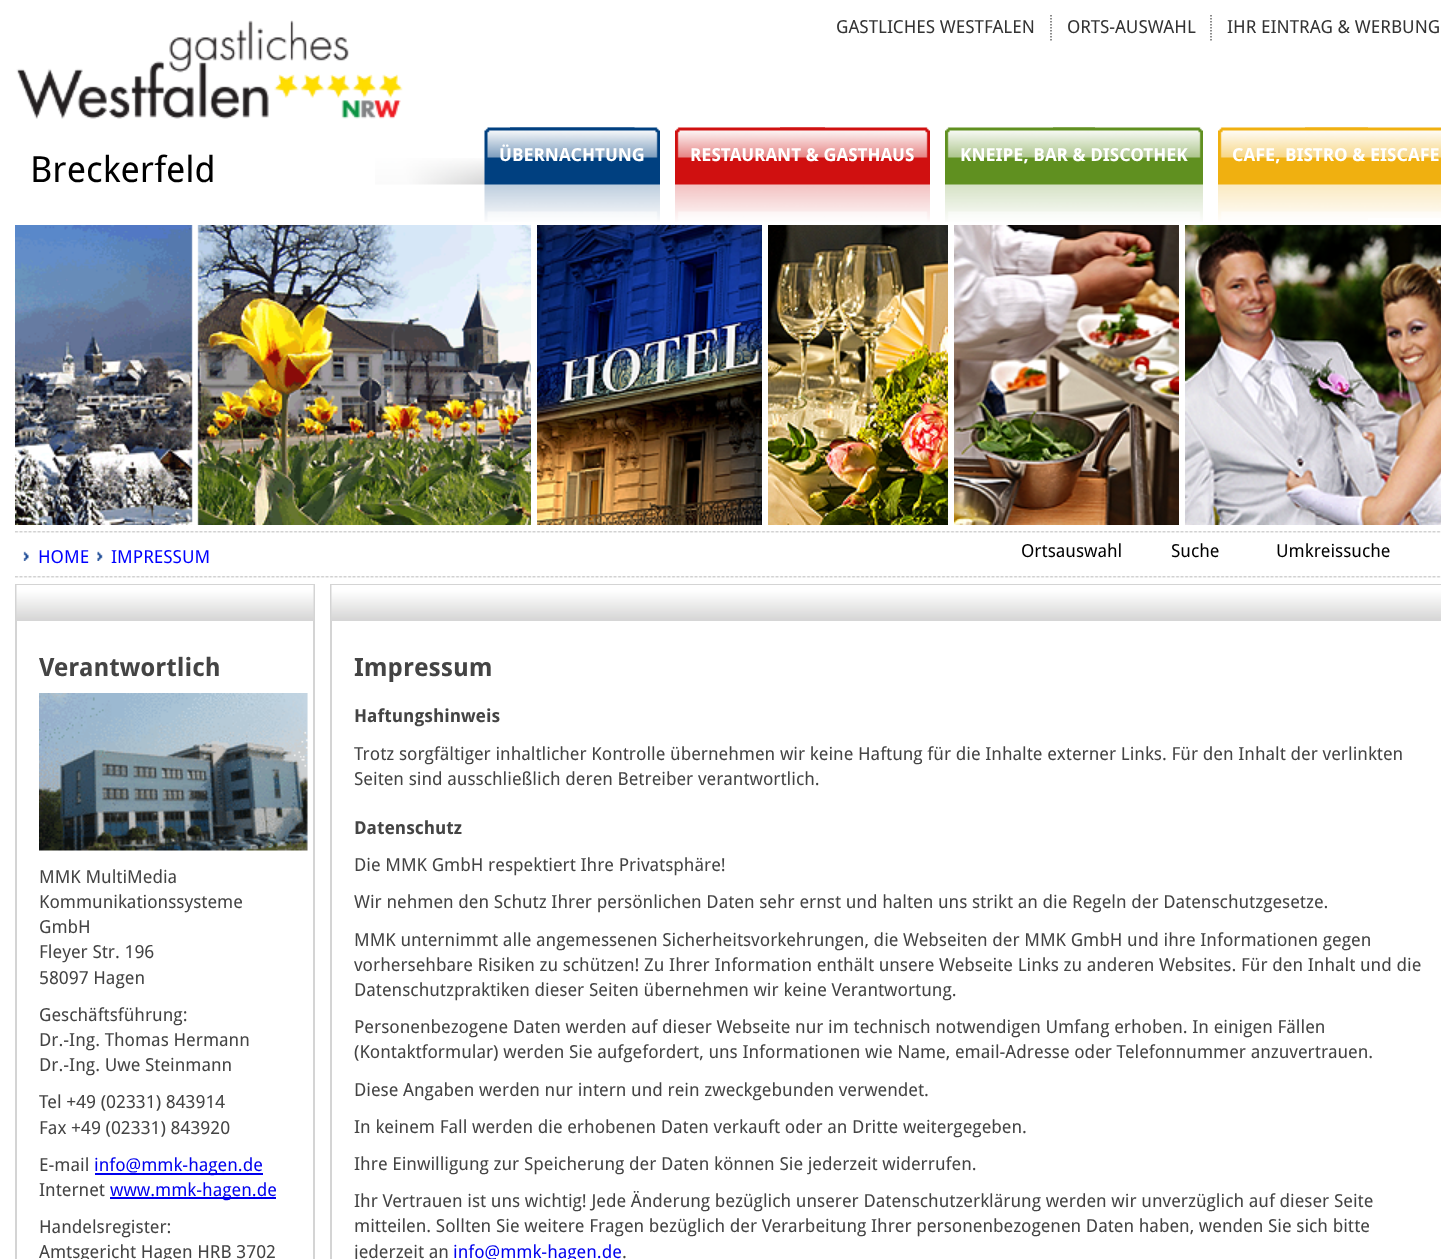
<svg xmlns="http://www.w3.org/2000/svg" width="1441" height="1259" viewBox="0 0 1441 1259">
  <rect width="100%" height="100%" fill="rgb(255,255,255)"/>
  <image x="16" y="20" width="387" height="99" href="pic1.png"/>
  <path d="M1051 15V40.5" fill="none" stroke="rgb(102,102,102)" stroke-width="1.5" stroke-dasharray="1.5 1.5"/>
  <text x="836" y="33" font-family="Droid Sans" font-size="18" fill="rgb(51,51,51)">GASTLICHES WESTFALEN</text>
  <path d="M1211 15V40.5" fill="none" stroke="rgb(102,102,102)" stroke-width="1.5" stroke-dasharray="1.5 1.5"/>
  <g font-family="Droid Sans" font-size="18" fill="rgb(51,51,51)">
    <text x="1067" y="33">ORTS-AUSWAHL</text>
    <text x="1227" y="33">IHR EINTRAG &amp; WERBUNG</text>
  </g>
  <g font-family="Droid Sans" font-size="18" fill="rgb(0,0,0)">
    <text x="1021" y="557">Ortsauswahl</text>
    <text x="1171" y="557">Suche</text>
    <text x="1276" y="557">Umkreissuche</text>
  </g>
  <image x="375" y="158" width="110" height="27" href="pic2.png"/>
  <text x="30" y="182" font-family="Droid Sans" font-size="36" fill="rgb(0,0,0)">Breckerfeld</text>
  <image x="484" y="127" width="151" height="95" href="pic3.png"/>
  <image x="510" y="127" width="150" height="95" href="pic4.png"/>
  <text x="499" y="161" font-family="Droid Sans" font-size="18" font-weight="bold" fill="rgb(255,255,255)">ÜBERNACHTUNG</text>
  <image x="675" y="127" width="150" height="95" href="pic5.png"/>
  <image x="780" y="127" width="150" height="95" href="pic6.png"/>
  <text x="690" y="161" font-family="Droid Sans" font-size="18" font-weight="bold" fill="rgb(255,255,255)">RESTAURANT &amp; GASTHAUS</text>
  <image x="945" y="127" width="150" height="95" href="pic7.png"/>
  <image x="1053" y="127" width="150" height="95" href="pic8.png"/>
  <text x="960" y="161" font-family="Droid Sans" font-size="18" font-weight="bold" fill="rgb(255,255,255)">KNEIPE, BAR &amp; DISCOTHEK</text>
  <image x="1218" y="127" width="150" height="95" href="pic9.png"/>
  <image x="1305" y="127" width="136" height="91" href="pic10.png"/>
  <text x="1232" y="161" font-family="Droid Sans" font-size="18" font-weight="bold" fill="rgb(255,255,255)">CAFE, BISTRO &amp; EISCAFE</text>
  <image x="15" y="225" width="516" height="300" href="pic11.png"/>
  <image x="537" y="225" width="225" height="300" href="pic12.png"/>
  <image x="768" y="225" width="180" height="300" href="pic13.png"/>
  <image x="954" y="225" width="225" height="300" href="pic14.png"/>
  <image x="1185" y="225" width="256" height="300" href="pic15.png"/>
  <image x="15" y="531" width="1426" height="2" href="pic16.png"/>
  <image x="23" y="551" width="6" height="10" href="pic17.png"/>
  <text x="38" y="563" font-family="Droid Sans" font-size="18" fill="rgb(0,0,255)">HOME</text>
  <image x="97" y="551" width="6" height="10" href="pic18.png"/>
  <text x="111" y="563" font-family="Droid Sans" font-size="18" fill="rgb(0,0,255)">IMPRESSUM</text>
  <image x="15" y="576" width="1426" height="2" href="pic16.png"/>
  <rect x="16" y="585" width="298" height="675" fill="none" stroke="rgb(212,212,212)" stroke-width="2"/>
  <image x="16" y="585" width="298" height="36" href="pic19.png"/>
  <text x="39" y="676" font-family="Droid Sans" font-size="25.25" font-weight="bold" fill="rgb(68,68,68)">Verantwortlich</text>
  <image x="39" y="693" width="269" height="158" href="pic20.png"/>
  <g font-family="Droid Sans" font-size="18" fill="rgb(68,68,68)">
    <text>
      <tspan x="39" y="883">MMK MultiMedia</tspan>
      <tspan x="39" y="908">Kommunikationssysteme</tspan>
      <tspan x="39" y="933">GmbH</tspan>
      <tspan x="39" y="958">Fleyer Str. 196</tspan>
      <tspan x="39" y="984">58097 Hagen</tspan>
    </text>
    <text>
      <tspan x="39" y="1021">Geschäftsführung:</tspan>
      <tspan x="39" y="1046">Dr.-Ing. Thomas Hermann</tspan>
      <tspan x="39" y="1071">Dr.-Ing. Uwe Steinmann</tspan>
    </text>
    <text>
      <tspan x="39" y="1108">Tel +49 (02331) 843914</tspan>
      <tspan x="39" y="1134">Fax +49 (02331) 843920</tspan>
    </text>
    <text x="39" y="1171">E-mail</text>
  </g>
  <rect x="95" y="1173" width="168" height="2" fill="rgb(0,0,238)"/>
  <text x="94" y="1171" font-family="Droid Sans" font-size="18" fill="rgb(0,0,238)">info@mmk-hagen.de</text>
  <text x="39" y="1196" font-family="Droid Sans" font-size="18" fill="rgb(68,68,68)">Internet</text>
  <rect x="110" y="1197" width="166" height="2" fill="rgb(0,0,238)"/>
  <text x="110" y="1196" font-family="Droid Sans" font-size="18" fill="rgb(0,0,238)">www.mmk-hagen.de</text>
  <g font-family="Droid Sans" font-size="18" fill="rgb(68,68,68)">
    <text>
      <tspan x="39" y="1233">Handelsregister:</tspan>
      <tspan x="39" y="1258">Amtsgericht Hagen HRB 3702</tspan>
    </text>
  </g>
  <rect x="331" y="585" width="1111" height="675" fill="none" stroke="rgb(212,212,212)" stroke-width="2"/>
  <image x="331" y="585" width="1110" height="36" href="pic21.png"/>
  <text x="354" y="676" font-family="Droid Sans" font-size="25.25" font-weight="bold" fill="rgb(68,68,68)">Impressum</text>
  <text x="354" y="722" font-family="Droid Sans" font-size="18" font-weight="bold" fill="rgb(68,68,68)">Haftungshinweis</text>
  <g font-family="Droid Sans" font-size="18" fill="rgb(68,68,68)">
    <text>
      <tspan x="354" y="760">Trotz sorgfältiger inhaltlicher Kontrolle übernehmen wir keine Haftung für die Inhalte externer Links. Für den Inhalt der verlinkten</tspan>
      <tspan x="354" y="785">Seiten sind ausschließlich deren Betreiber verantwortlich.</tspan>
    </text>
  </g>
  <text x="354" y="834" font-family="Droid Sans" font-size="18" font-weight="bold" fill="rgb(68,68,68)">Datenschutz</text>
  <g font-family="Droid Sans" font-size="18" fill="rgb(68,68,68)">
    <text x="354" y="871">Die MMK GmbH respektiert Ihre Privatsphäre!</text>
    <text x="354" y="908">Wir nehmen den Schutz Ihrer persönlichen Daten sehr ernst und halten uns strikt an die Regeln der Datenschutzgesetze.</text>
    <text>
      <tspan x="354" y="946">MMK unternimmt alle angemessenen Sicherheitsvorkehrungen, die Webseiten der MMK GmbH und ihre Informationen gegen</tspan>
      <tspan x="354" y="971">vorhersehbare Risiken zu schützen! Zu Ihrer Information enthält unsere Webseite Links zu anderen Websites. Für den Inhalt und die</tspan>
      <tspan x="354" y="996">Datenschutzpraktiken dieser Seiten übernehmen wir keine Verantwortung.</tspan>
    </text>
    <text>
      <tspan x="354" y="1033">Personenbezogene Daten werden auf dieser Webseite nur im technisch notwendigen Umfang erhoben. In einigen Fällen</tspan>
      <tspan x="354" y="1058">(Kontaktformular) werden Sie aufgefordert, uns Informationen wie Name, email-Adresse oder Telefonnummer anzuvertrauen.</tspan>
    </text>
    <text x="354" y="1096">Diese Angaben werden nur intern und rein zweckgebunden verwendet.</text>
    <text x="354" y="1133">In keinem Fall werden die erhobenen Daten verkauft oder an Dritte weitergegeben.</text>
    <text x="354" y="1170">Ihre Einwilligung zur Speicherung der Daten können Sie jederzeit widerrufen.</text>
    <text>
      <tspan x="354" y="1207">Ihr Vertrauen ist uns wichtig! Jede Änderung bezüglich unserer Datenschutzerklärung werden wir unverzüglich auf dieser Seite</tspan>
      <tspan x="354" y="1232">mitteilen. Sollten Sie weitere Fragen bezüglich der Verarbeitung Ihrer personenbezogenen Daten haben, wenden Sie sich bitte</tspan>
      <tspan x="354" y="1258">jederzeit an</tspan>
    </text>
  </g>
  <text x="453" y="1258" font-family="Droid Sans" font-size="18" fill="rgb(0,0,238)">info@mmk-hagen.de</text>
  <text x="622" y="1258" font-family="Droid Sans" font-size="18" fill="rgb(68,68,68)">.</text>
</svg>
